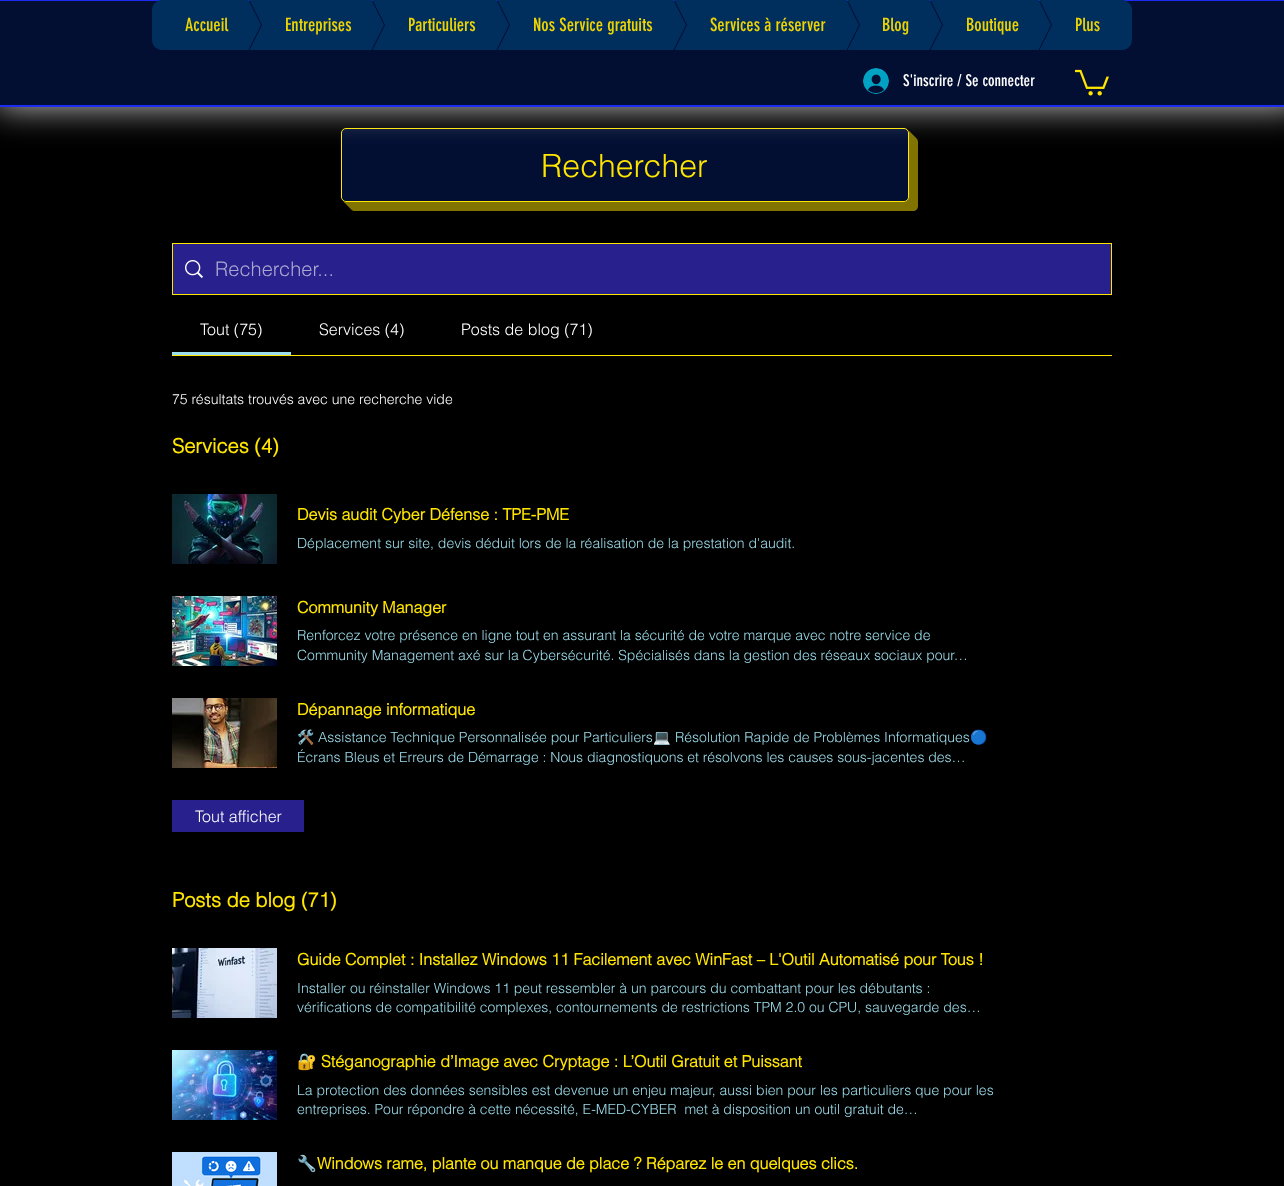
<svg xmlns="http://www.w3.org/2000/svg" width="1284" height="1186" viewBox="0 0 1284 1186">
  <defs>
    <clipPath id="clip1"><rect x="191" y="0" width="70" height="50"/></clipPath>
    <clipPath id="clip2"><rect x="192" y="0" width="70" height="50"/></clipPath>
    <clipPath id="clip3"><rect x="314" y="0" width="70" height="50"/></clipPath>
    <clipPath id="clip4"><rect x="315" y="0" width="70" height="50"/></clipPath>
    <clipPath id="clip5"><rect x="439" y="0" width="70" height="50"/></clipPath>
    <clipPath id="clip6"><rect x="440" y="0" width="70" height="50"/></clipPath>
    <clipPath id="clip7"><rect x="616" y="0" width="70" height="50"/></clipPath>
    <clipPath id="clip8"><rect x="617" y="0" width="70" height="50"/></clipPath>
    <clipPath id="clip9"><rect x="789" y="0" width="70" height="50"/></clipPath>
    <clipPath id="clip10"><rect x="790" y="0" width="70" height="50"/></clipPath>
    <clipPath id="clip11"><rect x="872" y="0" width="70" height="50"/></clipPath>
    <clipPath id="clip12"><rect x="873" y="0" width="70" height="50"/></clipPath>
    <clipPath id="clip13"><rect x="981" y="0" width="70" height="50"/></clipPath>
    <clipPath id="clip14"><rect x="982" y="0" width="70" height="50"/></clipPath>
  </defs>
  <rect width="100%" height="100%" fill="rgb(0,0,0)"/>
  <path d="M350 202V206C350 209 352 211 355 211H913C916 211 918 209 918 206V142C918 139 916 137 913 137H909V197C909 200 907 202 904 202Z" fill="rgb(128,115,0)"/>
  <path d="M348 202V204C348 207 350 209 353 209H911C914 209 916 207 916 204V140C916 137 914 135 911 135H909V197C909 200 907 202 904 202Z" fill="rgb(128,115,0)"/>
  <path d="M346 202C346 205 348 207 351 207H909C912 207 914 205 914 202V138C914 135 912 133 909 133V197C909 200 907 202 904 202Z" fill="rgb(128,115,0)"/>
  <path d="M344 202C345 204 347 205 349 205H907C910 205 912 203 912 200V136C912 134 911 132 909 131V186C909 190 911 202 904 202Z" fill="rgb(128,115,0)"/>
  <path d="M343 201C344 202 345 203 347 203H905C908 203 910 201 910 198V134C910 132 909 131 908 130C909 131 909 132 909 133V197C909 200 907 202 904 202H346C345 202 344 202 343 201Z" fill="rgb(128,115,0)"/>
  <rect x="341.5" y="128.5" width="567" height="73" rx="4.5" fill="rgb(3,15,50)" stroke="rgb(255,229,0)"/>
  <rect x="-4" y="-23" width="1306" height="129" fill="rgba(255,255,255,0.84)" filter="blur(17.5px)"/>
  <rect x="0" y="1" width="1284" height="104" fill="rgb(3,15,50)"/>
  <rect x="0" y="0" width="1284" height="1" fill="rgb(29,44,243)"/>
  <rect x="0" y="105" width="1284" height="2" fill="rgb(29,44,243)"/>
  <path d="M162 0H191V50H162C156.5 50 152 45.5 152 40V10C152 4.5 156.5 0 162 0Z" fill="rgb(0,46,93)"/>
  <path d="M261 25H191V-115Z" fill="rgb(0,46,93)"/>
  <g clip-path="url(#clip1)">
    <path d="M191 25H261L191 165Z" fill="rgb(0,46,93)"/>
  </g>
  <text x="185" y="31" font-family="'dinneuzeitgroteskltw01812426'" font-size="18" fill="rgb(236,212,4)">Accueil</text>
  <path d="M192-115H262V25Z" fill="rgb(0,46,93)"/>
  <g clip-path="url(#clip2)">
    <path d="M262 165H192L262 25Z" fill="rgb(0,46,93)"/>
  </g>
  <rect x="262" y="0" width="52" height="50" fill="rgb(0,46,93)"/>
  <path d="M384 25H314V-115Z" fill="rgb(0,46,93)"/>
  <g clip-path="url(#clip3)">
    <path d="M314 25H384L314 165Z" fill="rgb(0,46,93)"/>
  </g>
  <text x="285" y="31" font-family="'dinneuzeitgroteskltw01812426'" font-size="18" fill="rgb(236,212,4)">Entreprises</text>
  <path d="M315-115H385V25Z" fill="rgb(0,46,93)"/>
  <g clip-path="url(#clip4)">
    <path d="M385 165H315L385 25Z" fill="rgb(0,46,93)"/>
  </g>
  <rect x="385" y="0" width="54" height="50" fill="rgb(0,46,93)"/>
  <path d="M509 25H439V-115Z" fill="rgb(0,46,93)"/>
  <g clip-path="url(#clip5)">
    <path d="M439 25H509L439 165Z" fill="rgb(0,46,93)"/>
  </g>
  <text x="408" y="31" font-family="'dinneuzeitgroteskltw01812426'" font-size="18" fill="rgb(236,212,4)">Particuliers</text>
  <path d="M440-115H510V25Z" fill="rgb(0,46,93)"/>
  <g clip-path="url(#clip6)">
    <path d="M510 165H440L510 25Z" fill="rgb(0,46,93)"/>
  </g>
  <rect x="510" y="0" width="106" height="50" fill="rgb(0,46,93)"/>
  <path d="M686 25H616V-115Z" fill="rgb(0,46,93)"/>
  <g clip-path="url(#clip7)">
    <path d="M616 25H686L616 165Z" fill="rgb(0,46,93)"/>
  </g>
  <text x="533" y="31" font-family="'dinneuzeitgroteskltw01812426'" font-size="18" fill="rgb(236,212,4)">Nos Service gratuits</text>
  <path d="M617-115H687V25Z" fill="rgb(0,46,93)"/>
  <g clip-path="url(#clip8)">
    <path d="M687 165H617L687 25Z" fill="rgb(0,46,93)"/>
  </g>
  <rect x="687" y="0" width="102" height="50" fill="rgb(0,46,93)"/>
  <path d="M859 25H789V-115Z" fill="rgb(0,46,93)"/>
  <g clip-path="url(#clip9)">
    <path d="M789 25H859L789 165Z" fill="rgb(0,46,93)"/>
  </g>
  <text x="710" y="31" font-family="'dinneuzeitgroteskltw01812426'" font-size="18" fill="rgb(236,212,4)">Services à réserver</text>
  <path d="M790-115H860V25Z" fill="rgb(0,46,93)"/>
  <g clip-path="url(#clip10)">
    <path d="M860 165H790L860 25Z" fill="rgb(0,46,93)"/>
  </g>
  <rect x="860" y="0" width="12" height="50" fill="rgb(0,46,93)"/>
  <path d="M942 25H872V-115Z" fill="rgb(0,46,93)"/>
  <g clip-path="url(#clip11)">
    <path d="M872 25H942L872 165Z" fill="rgb(0,46,93)"/>
  </g>
  <text x="882" y="31" font-family="'dinneuzeitgroteskltw01812426'" font-size="18" fill="rgb(236,212,4)">Blog</text>
  <path d="M873-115H943V25Z" fill="rgb(0,46,93)"/>
  <g clip-path="url(#clip12)">
    <path d="M943 165H873L943 25Z" fill="rgb(0,46,93)"/>
  </g>
  <rect x="943" y="0" width="38" height="50" fill="rgb(0,46,93)"/>
  <path d="M1051 25H981V-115Z" fill="rgb(0,46,93)"/>
  <g clip-path="url(#clip13)">
    <path d="M981 25H1051L981 165Z" fill="rgb(0,46,93)"/>
  </g>
  <text x="966" y="31" font-family="'dinneuzeitgroteskltw01812426'" font-size="18" fill="rgb(236,212,4)">Boutique</text>
  <path d="M982-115H1052V25Z" fill="rgb(0,46,93)"/>
  <g clip-path="url(#clip14)">
    <path d="M1052 165H982L1052 25Z" fill="rgb(0,46,93)"/>
  </g>
  <rect x="1052" y="0" width="10" height="50" fill="rgb(0,46,93)"/>
  <path d="M1062 0H1122C1127.5 0 1132 4.5 1132 10V40C1132 45.5 1127.5 50 1122 50H1062Z" fill="rgb(0,46,93)"/>
  <text x="1075" y="31" font-family="'dinneuzeitgroteskltw01812426'" font-size="18" fill="rgb(236,212,4)">Plus</text>
  <image x="863" y="68" width="26" height="26" href="pic1.png"/>
  <text x="903" y="86" font-family="'dinneuzeitgroteskltw01812426'" font-size="16" fill="rgb(255,255,255)">S'inscrire / Se connecter</text>
  <image x="1075" y="69" width="34" height="27" href="pic2.png"/>
  <text x="541" y="177" font-family="helvetica" font-size="32" font-weight="300" fill="rgb(255,229,0)">Rechercher</text>
  <rect x="172.5" y="243.5" width="939" height="51" fill="rgb(40,32,140)" stroke="rgb(255,229,0)"/>
  <image x="185" y="260" width="18" height="18" href="pic3.png"/>
  <text x="215" y="276" font-family="helvetica" font-size="20" font-weight="300" fill="rgb(169,166,209)">Rechercher...</text>
  <rect x="172" y="355" width="940" height="1" fill="rgb(255,229,0)"/>
  <rect x="172" y="352" width="119" height="3" fill="rgb(156,221,235)"/>
  <g font-family="helvetica" font-size="16" font-weight="300" fill="rgb(255,255,255)">
    <text x="200" y="335">Tout (75)</text>
    <text x="319" y="335">Services (4)</text>
    <text x="461" y="335">Posts de blog (71)</text>
  </g>
  <text x="172" y="404" font-family="helvetica" font-size="14" font-weight="300" fill="rgb(255,255,255)">75 résultats trouvés avec une recherche vide</text>
  <text x="172" y="453" font-family="helvetica" font-size="20" font-weight="bold" fill="rgb(255,229,0)">Services (4)</text>
  <image x="172" y="494" width="105" height="70" href="pic4.png"/>
  <text x="297" y="520" font-family="helvetica" font-size="16" font-weight="bold" fill="rgb(255,229,0)">Devis audit Cyber Défense : TPE-PME</text>
  <text x="297" y="548" font-family="helvetica" font-size="14" font-weight="300" fill="rgb(156,221,235)">Déplacement sur site, devis déduit lors de la réalisation de la prestation d'audit.</text>
  <image x="172" y="596" width="105" height="70" href="pic5.png"/>
  <text x="297" y="613" font-family="helvetica" font-size="16" font-weight="bold" fill="rgb(255,229,0)">Community Manager</text>
  <g font-family="helvetica" font-size="14" font-weight="300" fill="rgb(156,221,235)">
    <text>
      <tspan x="297" y="640">Renforcez votre présence en ligne tout en assurant la sécurité de votre marque avec notre service de</tspan>
      <tspan x="297" y="660">Community Management axé sur la Cybersécurité. Spécialisés dans la gestion des réseaux sociaux pour…</tspan>
    </text>
  </g>
  <image x="172" y="698" width="105" height="70" href="pic6.png"/>
  <text x="297" y="715" font-family="helvetica" font-size="16" font-weight="bold" fill="rgb(255,229,0)">Dépannage informatique</text>
  <text x="297" y="742" font-family="Noto Color Emoji" font-size="14" fill="rgb(156,221,235)">🛠</text>
  <text x="318" y="742" font-family="helvetica" font-size="14" font-weight="300" fill="rgb(156,221,235)">Assistance Technique Personnalisée pour Particuliers</text>
  <text x="653" y="742" font-family="Noto Color Emoji" font-size="14" fill="rgb(156,221,235)">💻</text>
  <text x="675" y="742" font-family="helvetica" font-size="14" font-weight="300" fill="rgb(156,221,235)">Résolution Rapide de Problèmes Informatiques</text>
  <text x="970" y="742" font-family="Noto Color Emoji" font-size="14" fill="rgb(156,221,235)">🔵</text>
  <text x="297" y="762" font-family="helvetica" font-size="14" font-weight="300" fill="rgb(156,221,235)">Écrans Bleus et Erreurs de Démarrage : Nous diagnostiquons et résolvons les causes sous-jacentes des…</text>
  <rect x="172" y="800" width="132" height="32" fill="rgb(40,32,140)"/>
  <text x="195" y="822" font-family="helvetica" font-size="16" font-weight="300" fill="rgb(255,255,255)">Tout afficher</text>
  <text x="172" y="907" font-family="helvetica" font-size="20" font-weight="bold" fill="rgb(255,229,0)">Posts de blog (71)</text>
  <image x="172" y="948" width="105" height="70" href="pic7.png"/>
  <text x="297" y="965" font-family="helvetica" font-size="16" font-weight="bold" fill="rgb(255,229,0)">Guide Complet : Installez Windows 11 Facilement avec WinFast – L'Outil Automatisé pour Tous !</text>
  <g font-family="helvetica" font-size="14" font-weight="300" fill="rgb(156,221,235)">
    <text>
      <tspan x="297" y="993">Installer ou réinstaller Windows 11 peut ressembler à un parcours du combattant pour les débutants :</tspan>
      <tspan x="297" y="1012">vérifications de compatibilité complexes, contournements de restrictions TPM 2.0 ou CPU, sauvegarde des…</tspan>
    </text>
  </g>
  <image x="172" y="1050" width="105" height="70" href="pic8.png"/>
  <text x="297" y="1067" font-family="Noto Color Emoji" font-size="16" font-weight="bold" fill="rgb(255,229,0)">🔐</text>
  <text x="321" y="1067" font-family="helvetica" font-size="16" font-weight="bold" fill="rgb(255,229,0)">Stéganographie d’Image avec Cryptage : L’Outil Gratuit et Puissant</text>
  <g font-family="helvetica" font-size="14" font-weight="300" fill="rgb(156,221,235)">
    <text xml:space="preserve"><tspan x="297" y="1095">La protection des données sensibles est devenue un enjeu majeur, aussi bien pour les particuliers que pour les</tspan><tspan x="297" y="1114">entreprises. Pour répondre à cette nécessité, E-MED-CYBER  met à disposition un outil gratuit de…</tspan></text>
  </g>
  <image x="172" y="1152" width="105" height="34" href="pic9.png"/>
  <text x="297" y="1169" font-family="Noto Color Emoji" font-size="16" font-weight="bold" fill="rgb(255,229,0)">🔧</text>
  <text x="317" y="1169" font-family="helvetica" font-size="16" font-weight="bold" fill="rgb(255,229,0)">Windows rame, plante ou manque de place ? Réparez le en quelques clics.</text>
</svg>
